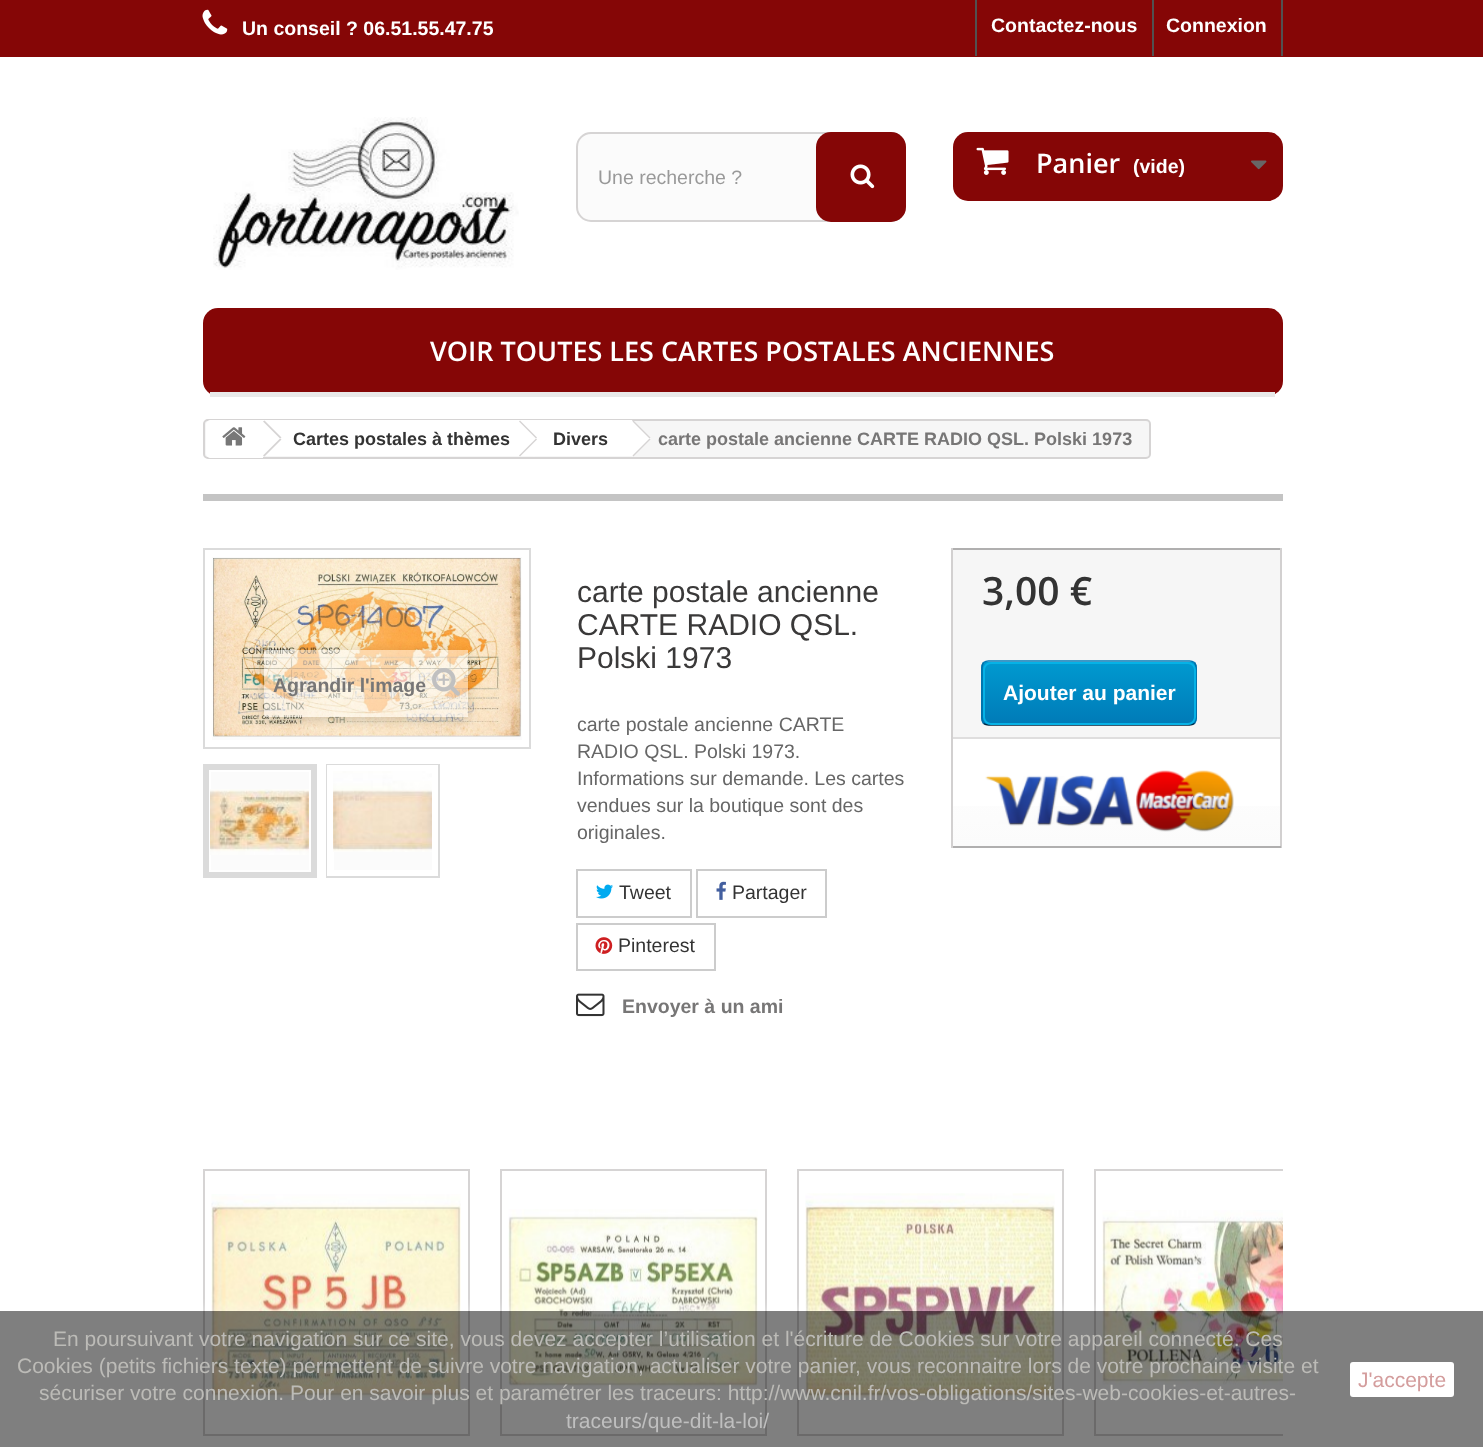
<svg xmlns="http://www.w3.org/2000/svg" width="1483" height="1447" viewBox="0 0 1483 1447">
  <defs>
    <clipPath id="clip1"><path d="M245 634H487V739H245ZM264 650H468V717H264Z" clip-rule="evenodd"/></clipPath>
    <clipPath id="clip2"><rect x="981" y="660" width="216" height="66" rx="8"/></clipPath>
    <linearGradient id="g1" gradientUnits="userSpaceOnUse" x1="1089" y1="662" x2="1089" y2="725"><stop offset="0" stop-color="rgb(0,154,208)"/><stop offset="1" stop-color="rgb(0,122,183)"/></linearGradient>
    <linearGradient id="g2" gradientUnits="userSpaceOnUse" x1="1116" y1="738" x2="1116" y2="846"><stop offset="0" stop-color="rgb(255,255,255)"/><stop offset="1" stop-color="rgb(251,251,251)"/></linearGradient>
    <clipPath id="clip3"><rect x="203" y="1169" width="1080" height="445"/></clipPath>
    <clipPath id="clip4"><rect x="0" y="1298" width="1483" height="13"/></clipPath>
  </defs>
  <rect width="100%" height="100%" fill="rgb(255,255,255)"/>
  <rect x="0" y="0" width="1483" height="57" fill="rgb(133,6,6)"/>
  <image x="202" y="9" width="26" height="26" href="pic1.png"/>
  <text x="242" y="35" font-family="Liberation Sans" font-size="19.5" font-weight="bold" fill="rgb(255,255,255)">Un conseil ? 06.51.55.47.75</text>
  <rect x="975" y="0" width="2" height="56" fill="rgb(81,81,81)"/>
  <text x="991" y="32" font-family="Liberation Sans" font-size="19.5" font-weight="bold" fill="rgb(255,255,255)">Contactez-nous</text>
  <rect x="1281" y="0" width="2" height="56" fill="rgb(81,81,81)"/>
  <rect x="1152" y="0" width="2" height="56" fill="rgb(81,81,81)"/>
  <text x="1166" y="32" font-family="Liberation Sans" font-size="19.5" font-weight="bold" fill="rgb(255,255,255)">Connexion</text>
  <image x="213" y="117" width="306" height="153" href="pic2.png"/>
  <rect x="577" y="133" width="328" height="88" rx="14" fill="rgb(251,251,251)" stroke="rgb(214,212,212)" stroke-width="2"/>
  <text x="598" y="184" font-family="Liberation Sans" font-size="19.5" fill="rgb(153,153,153)">Une recherche ?</text>
  <rect x="816" y="132" width="90" height="90" rx="15" fill="rgb(133,6,6)"/>
  <image x="850" y="164" width="25" height="25" href="pic3.png"/>
  <rect x="953" y="132" width="330" height="69" rx="15" fill="rgb(133,6,6)"/>
  <image x="976" y="147" width="33" height="28" href="pic4.png"/>
  <text x="1036" y="173" font-family="Open Sans" font-size="27" font-weight="600" fill="rgb(255,255,255)">Panier</text>
  <text x="1133" y="173" font-family="Liberation Sans" font-size="19.5" font-weight="bold" fill="rgb(255,255,255)">(vide)</text>
  <image x="1251" y="160" width="16" height="10" href="pic5.png"/>
  <rect x="203" y="308" width="1080" height="88" rx="15" fill="rgb(133,6,6)"/>
  <rect x="210" y="392" width="1065" height="5" fill="rgb(233,233,233)"/>
  <text x="430" y="361" font-family="Open Sans" font-size="27" font-weight="600" fill="rgb(255,255,255)">VOIR TOUTES LES CARTES POSTALES ANCIENNES</text>
  <rect x="204" y="420" width="946" height="38" rx="4" fill="rgb(246,246,246)" stroke="rgb(214,212,212)" stroke-width="2"/>
  <path d="M211 420H263V458H211C208 458 206 456 206 453V425C206 422 208 420 211 420Z" fill="rgb(255,255,255)"/>
  <image x="222" y="427" width="24" height="19" href="pic6.png"/>
  <rect x="263" y="420" width="258" height="36" fill="rgb(255,255,255)"/>
  <path d="M264.5 420.5L281.5 437.5L280 438.5L263 421.5Z" fill="rgb(214,212,212)"/>
  <path d="M280 438.5L281.5 439.5L264.5 456.5L263 455.5Z" fill="rgb(214,212,212)"/>
  <text x="293" y="445" font-family="Liberation Sans" font-size="18" font-weight="bold" fill="rgb(51,51,51)">Cartes postales à thèmes</text>
  <path d="M536 421.5L551 436.5C552 437.5 552 439.5 551 440.5L536 455.5C535 456.5 533 456.5 532 455.5L517 440.5C515.5 439.5 515.5 437.5 517 436.5L532 421.5C533 420.5 535 420.5 536 421.5Z" fill="rgb(255,255,255)"/>
  <rect x="521" y="420" width="111" height="36" fill="rgb(255,255,255)"/>
  <path d="M520 420.5L537 437.5L536 438.5L519 421.5Z" fill="rgb(214,212,212)"/>
  <path d="M536 438.5L537 439.5L520 456.5L519 455.5Z" fill="rgb(214,212,212)"/>
  <text x="553" y="445" font-family="Liberation Sans" font-size="18" font-weight="bold" fill="rgb(51,51,51)">Divers</text>
  <path d="M634.5 421.5L649.5 436.5C650.5 437.5 650.5 439.5 649.5 440.5L634.5 455.5C633.5 456.5 631.5 456.5 630.5 455.5L615.5 440.5C614.5 439.5 614.5 437.5 615.5 436.5L630.5 421.5C631.5 420.5 633.5 420.5 634.5 421.5Z" fill="rgb(255,255,255)"/>
  <path d="M633.5 420.5L650.5 437.5L649.5 438.5L632.5 421.5Z" fill="rgb(214,212,212)"/>
  <path d="M649.5 438.5L650.5 439.5L633.5 456.5L632.5 455.5Z" fill="rgb(214,212,212)"/>
  <text x="658" y="445" font-family="Liberation Sans" font-size="18" font-weight="bold" fill="rgb(119,118,118)">carte postale ancienne CARTE RADIO QSL. Polski 1973</text>
  <rect x="203" y="494" width="1080" height="7" fill="rgb(196,196,196)"/>
  <rect x="204" y="549" width="326" height="199" fill="none" stroke="rgb(219,219,219)" stroke-width="2"/>
  <rect x="212" y="557" width="310" height="183" fill="rgb(251,251,251)"/>
  <image x="211" y="558" width="311" height="179" href="pic7.png"/>
  <g clip-path="url(#clip1)">
    <rect x="264" y="653" width="204" height="67" fill="rgba(0,0,0,0.16)" filter="blur(6px)"/>
  </g>
  <rect x="264" y="650" width="204" height="67" fill="rgba(255,255,255,0.5)"/>
  <text x="273" y="692" font-family="Liberation Sans" font-size="19.5" font-weight="bold" fill="rgb(119,118,118)">Agrandir l'image</text>
  <image x="432" y="668" width="28" height="28" href="pic8.png"/>
  <rect x="204" y="765" width="112" height="112" fill="none" stroke="rgb(219,219,219)" stroke-width="2"/>
  <rect x="211" y="772" width="98" height="98" fill="rgb(251,251,251)"/>
  <rect x="206.5" y="767.5" width="106" height="106" fill="none" stroke="rgb(219,219,219)" stroke-width="5"/>
  <rect x="210" y="771" width="100" height="100" fill="none" stroke="rgb(255,255,255)" stroke-width="2"/>
  <image x="210" y="789" width="99" height="66" href="pic9.png"/>
  <rect x="327" y="765" width="112" height="112" fill="none" stroke="rgb(219,219,219)" stroke-width="2"/>
  <rect x="334" y="852" width="98" height="18" fill="rgb(251,251,251)"/>
  <rect x="329.5" y="767.5" width="106" height="106" fill="none" stroke="rgb(255,255,255)" stroke-width="5"/>
  <image x="333" y="771" width="99" height="81" href="pic10.png"/>
  <g font-family="Liberation Sans" font-size="30" fill="rgb(58,57,57)">
    <text>
      <tspan x="577" y="602">carte postale ancienne</tspan>
      <tspan x="577" y="635">CARTE RADIO QSL.</tspan>
      <tspan x="577" y="668">Polski 1973</tspan>
    </text>
  </g>
  <g font-family="Liberation Sans" font-size="19.5" fill="rgb(102,102,102)">
    <text>
      <tspan x="577" y="731">carte postale ancienne CARTE</tspan>
      <tspan x="577" y="758">RADIO QSL. Polski 1973.</tspan>
      <tspan x="577" y="785">Informations sur demande. Les cartes</tspan>
      <tspan x="577" y="812">vendues sur la boutique sont des</tspan>
      <tspan x="577" y="839">originales.</tspan>
    </text>
  </g>
  <rect x="577" y="870" width="114" height="47" fill="none" stroke="rgb(204,204,204)" stroke-width="2"/>
  <image x="596" y="884" width="17" height="15" href="pic11.png"/>
  <text x="619" y="899" font-family="Liberation Sans" font-size="19.5" fill="rgb(51,51,51)">Tweet</text>
  <rect x="697" y="870" width="129" height="47" fill="none" stroke="rgb(204,204,204)" stroke-width="2"/>
  <image x="716" y="881" width="10" height="19" href="pic12.png"/>
  <text x="732" y="899" font-family="Liberation Sans" font-size="19.5" fill="rgb(51,51,51)">Partager</text>
  <rect x="577" y="924" width="138" height="46" fill="none" stroke="rgb(204,204,204)" stroke-width="2"/>
  <image x="595" y="937" width="18" height="17" href="pic13.png"/>
  <text x="618" y="952" font-family="Liberation Sans" font-size="19.5" fill="rgb(51,51,51)">Pinterest</text>
  <image x="576" y="993" width="29" height="24" href="pic14.png"/>
  <text x="622" y="1013" font-family="Liberation Sans" font-size="19.5" font-weight="bold" fill="rgb(119,118,118)">Envoyer à un ami</text>
  <rect x="953" y="550" width="327" height="187" fill="rgb(246,246,246)"/>
  <rect x="951" y="548" width="330" height="2" fill="rgb(176,175,175)"/>
  <rect x="1280" y="548" width="2" height="300" fill="rgb(210,208,208)"/>
  <rect x="951" y="846" width="330" height="2" fill="rgb(176,175,175)"/>
  <rect x="951" y="548" width="2" height="300" fill="rgb(210,208,208)"/>
  <text x="982" y="605" font-family="Open Sans" font-size="39" font-weight="600" fill="rgb(51,51,51)">3,00 €</text>
  <g clip-path="url(#clip2)">
    <rect x="981" y="662" width="216" height="63" fill="url(#g1)"/>
  </g>
  <path d="M983.5 662.5C985 661.5 986.5 661 988.5 661H1189.5C1191.5 661 1193 661.5 1194.5 662.5" fill="none" stroke="rgb(0,121,182)" stroke-width="1.5"/>
  <path d="M1194.5 662.5C1195.5 664 1196 665.5 1196 667.5V718.5C1196 720.5 1195.5 722 1194.5 723.5" fill="none" stroke="rgb(0,111,168)" stroke-width="1.5"/>
  <path d="M1194.5 723.5C1193 724.5 1191.5 725 1189.5 725H988.5C986.5 725 985 724.5 983.5 723.5" fill="none" stroke="rgb(1,39,64)" stroke-width="1.5"/>
  <path d="M983.5 723.5C982.5 722 982 720.5 982 718.5V667.5C982 665.5 982.5 664 983.5 662.5" fill="none" stroke="rgb(0,111,168)" stroke-width="1.5"/>
  <rect x="984" y="663" width="211" height="61" rx="7" fill="none" stroke="rgb(6,178,230)" stroke-width="2"/>
  <text x="1003" y="700" font-family="Liberation Sans" font-size="21" font-weight="bold" fill="rgb(255,255,255)">Ajouter au panier</text>
  <rect x="953" y="806" width="327" height="40" fill="url(#g2)"/>
  <rect x="953" y="737" width="327" height="2" fill="rgb(223,222,222)"/>
  <image x="985" y="770" width="249" height="62" href="pic15.png"/>
  <rect x="204" y="1170" width="265" height="265" fill="none" stroke="rgb(214,212,212)" stroke-width="2"/>
  <image x="211" y="1194" width="250" height="207" href="pic16.png"/>
  <rect x="501" y="1170" width="265" height="265" fill="none" stroke="rgb(214,212,212)" stroke-width="2"/>
  <image x="508" y="1209" width="250" height="178" href="pic17.png"/>
  <rect x="798" y="1170" width="265" height="265" fill="none" stroke="rgb(214,212,212)" stroke-width="2"/>
  <image x="805" y="1193" width="250" height="208" href="pic18.png"/>
  <g clip-path="url(#clip3)">
    <rect x="1095" y="1170" width="265" height="265" fill="none" stroke="rgb(214,212,212)" stroke-width="2"/>
  </g>
  <image x="1102" y="1210" width="181" height="175" href="pic19.png"/>
  <image x="1240" y="1335" width="27" height="27" href="pic20.png"/>
  <g clip-path="url(#clip4)">
    <rect x="0" y="1311" width="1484" height="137" fill="rgba(255,255,255,0.5)" filter="blur(7.5px)"/>
  </g>
  <rect x="0" y="1311" width="1483" height="136" fill="rgba(0,0,0,0.5)"/>
  <g font-family="Liberation Sans" font-size="21" fill="rgb(188,187,183)">
    <text x="53" y="1346">En poursuivant votre navigation sur ce site, vous devez accepter l’utilisation et l'écriture de Cookies sur votre appareil connecté. Ces</text>
    <text x="17" y="1373">Cookies (petits fichiers texte) permettent de suivre votre navigation, actualiser votre panier, vous reconnaitre lors de votre prochaine visite et</text>
    <text x="39" y="1400">sécuriser votre connexion. Pour en savoir plus et paramétrer les traceurs: http://www.cnil.fr/vos-obligations/sites-web-cookies-et-autres-</text>
  </g>
  <text x="566" y="1428" font-family="Liberation Sans" font-size="21" fill="rgb(191,191,191)">traceurs/que-dit-la-loi/</text>
  <rect x="1350" y="1362" width="104" height="35" rx="3" fill="rgb(255,255,255)"/>
  <text x="1358" y="1387" font-family="Liberation Sans" font-size="21" fill="rgb(212,157,157)">J'accepte</text>
</svg>
